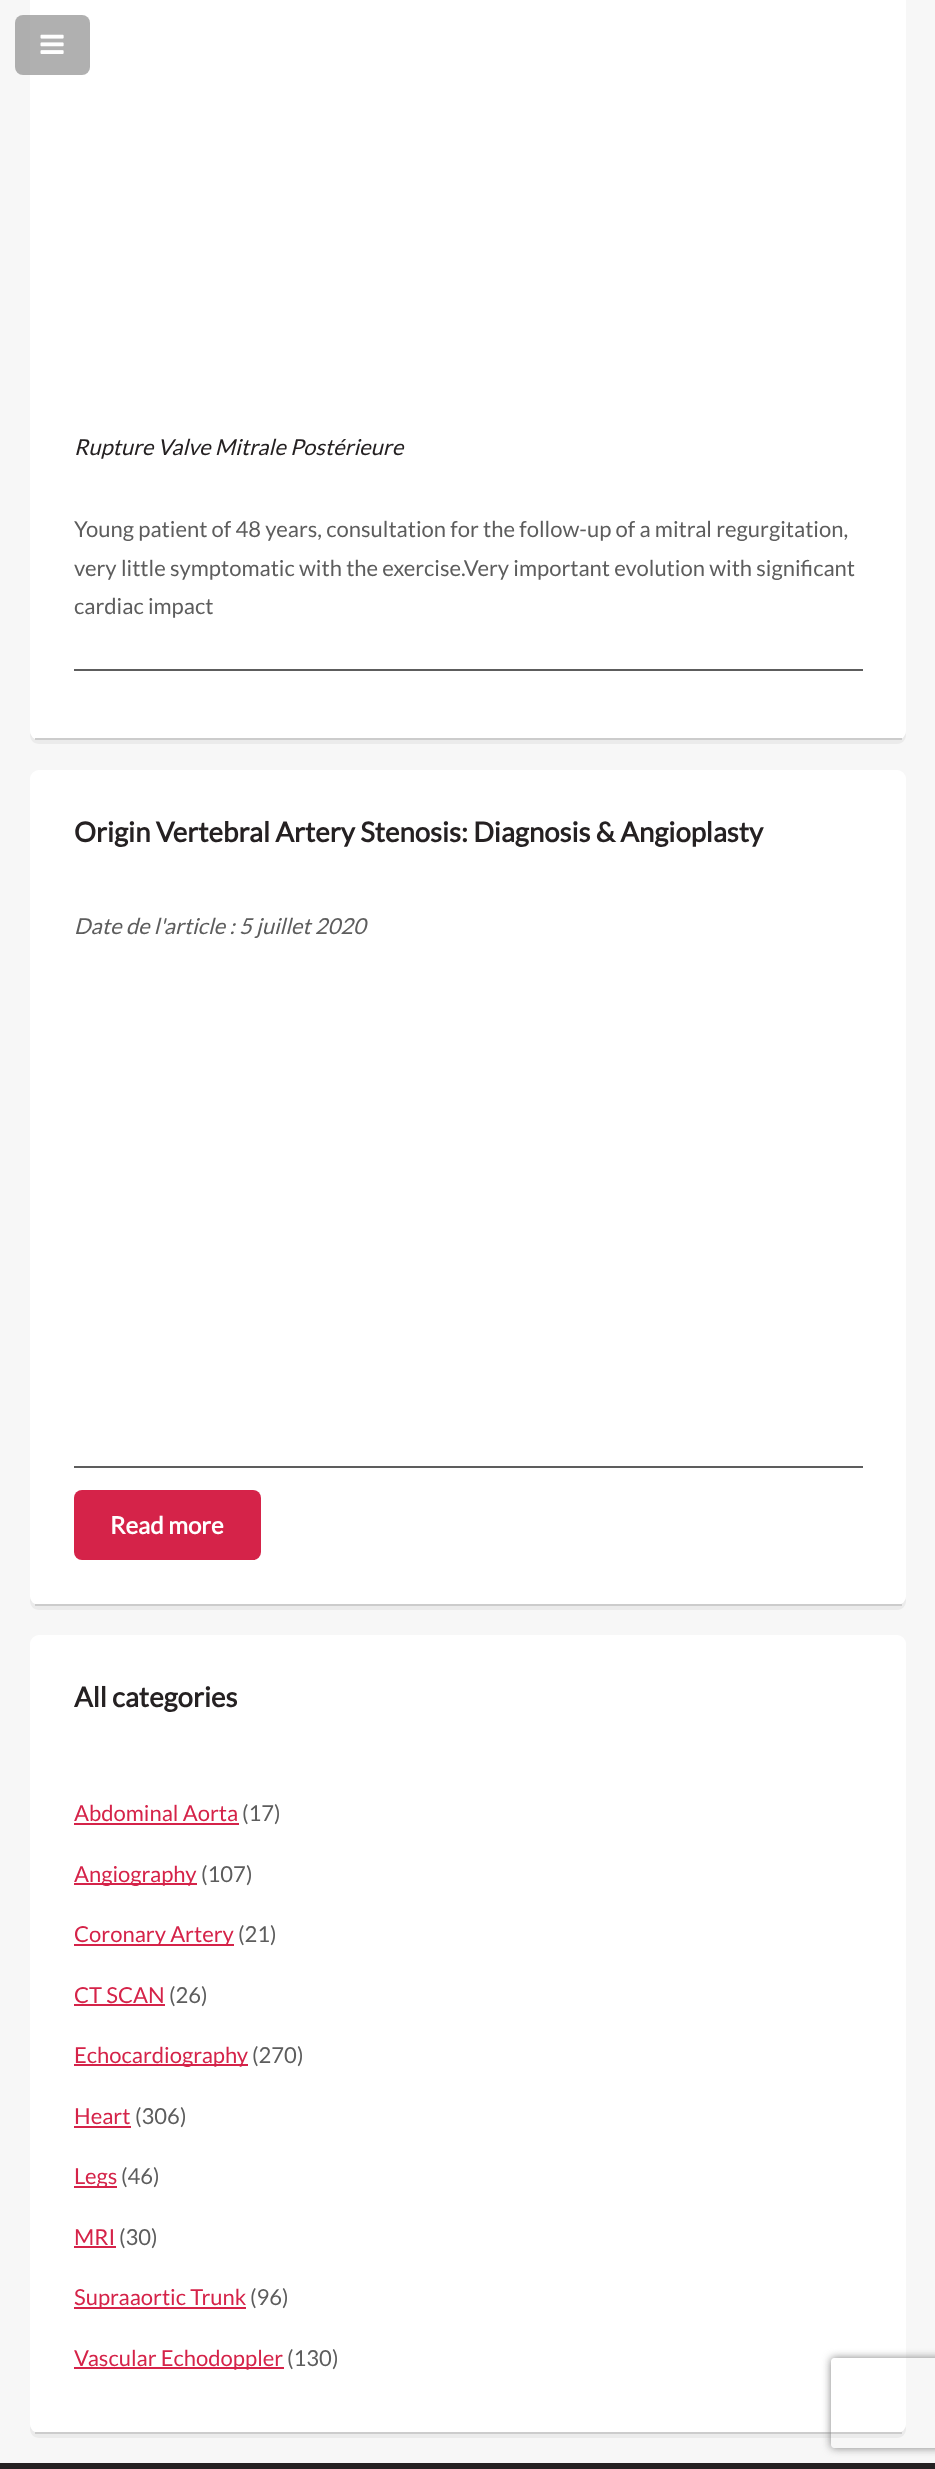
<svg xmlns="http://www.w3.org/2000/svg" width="935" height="2469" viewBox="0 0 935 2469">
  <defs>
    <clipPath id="clip1"><path d="M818 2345H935V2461H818ZM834 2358H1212C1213.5 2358 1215 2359.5 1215 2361V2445C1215 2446.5 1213.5 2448 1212 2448H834C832.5 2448 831 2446.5 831 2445V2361C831 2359.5 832.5 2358 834 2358Z" clip-rule="evenodd"/></clipPath>
  </defs>
  <rect width="100%" height="100%" fill="rgb(37,33,34)"/>
  <rect x="0" y="0" width="935" height="2463" fill="rgb(247,247,247)"/>
  <path d="M30 730V735C30 740 34 744 39 744H897C902 744 906 740 906 735V730C906 735 902 740 897 740H39C34 740 30 735 30 730Z" fill="rgb(235,235,235)"/>
  <rect x="30" y="-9" width="876" height="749" rx="9" fill="rgb(255,255,255)"/>
  <rect x="15" y="15" width="75" height="60" rx="8" fill="rgba(150,150,150,0.75)"/>
  <image x="40" y="34" width="24" height="20" href="pic1.png"/>
  <rect x="35" y="738" width="867" height="2" fill="rgb(204,204,204)"/>
  <text x="74" y="455" font-family="Lato" font-size="22" font-style="italic" fill="rgb(37,33,34)">Rupture Valve Mitrale Postérieure</text>
  <g font-family="Lato" font-size="22" fill="rgb(93,93,93)">
    <text>
      <tspan x="74" y="537">Young patient of 48 years, consultation for the follow-up of a mitral regurgitation,</tspan>
      <tspan x="74" y="576">very little symptomatic with the exercise.Very important evolution with significant</tspan>
      <tspan x="74" y="614">cardiac impact</tspan>
    </text>
  </g>
  <rect x="74" y="669" width="789" height="2" fill="rgb(93,93,93)"/>
  <path d="M30 1596V1601C30 1606 34 1610 39 1610H897C902 1610 906 1606 906 1601V1596C906 1601 902 1605 897 1605H39C34 1605 30 1601 30 1596Z" fill="rgb(235,235,235)"/>
  <rect x="30" y="770" width="876" height="835" rx="9" fill="rgb(255,255,255)"/>
  <rect x="35" y="1604" width="867" height="2" fill="rgb(204,204,204)"/>
  <text x="74" y="842" font-family="Lato" font-size="27.5" font-weight="bold" fill="rgb(37,33,34)">Origin Vertebral Artery Stenosis: Diagnosis &amp; Angioplasty</text>
  <text x="74" y="934" font-family="Lato" font-size="22" font-style="italic" fill="rgb(93,93,93)">Date de l'article : 5 juillet 2020</text>
  <rect x="74" y="1466" width="789" height="2" fill="rgb(93,93,93)"/>
  <rect x="74" y="1490" width="187" height="70" rx="8" fill="rgb(213,35,73)"/>
  <text x="110" y="1534" font-family="Lato" font-size="24" font-weight="bold" fill="rgb(255,255,255)">Read more</text>
  <path d="M30 2424V2429C30 2434 34 2438 39 2438H897C902 2438 906 2434 906 2429V2424C906 2429 902 2433 897 2433H39C34 2433 30 2429 30 2424Z" fill="rgb(235,235,235)"/>
  <rect x="30" y="1635" width="876" height="798" rx="9" fill="rgb(255,255,255)"/>
  <rect x="35" y="2432" width="867" height="2" fill="rgb(204,204,204)"/>
  <text x="74" y="1707" font-family="Lato" font-size="27.5" font-weight="bold" fill="rgb(37,33,34)">All categories</text>
  <text x="74" y="1821" font-family="Lato" font-size="22" fill="rgb(213,35,73)">Abdominal Aorta</text>
  <rect x="74" y="1823" width="165" height="2" fill="rgb(213,35,73)"/>
  <text x="242" y="1821" font-family="Lato" font-size="22" fill="rgb(93,93,93)">(17)</text>
  <rect x="74" y="1883" width="123" height="2" fill="rgb(213,35,73)"/>
  <text x="74" y="1882" font-family="Lato" font-size="22" fill="rgb(213,35,73)">Angiography</text>
  <text x="201" y="1882" font-family="Lato" font-size="22" fill="rgb(93,93,93)">(107)</text>
  <rect x="74" y="1944" width="160" height="2" fill="rgb(213,35,73)"/>
  <text x="74" y="1942" font-family="Lato" font-size="22" fill="rgb(213,35,73)">Coronary Artery</text>
  <text x="238" y="1942" font-family="Lato" font-size="22" fill="rgb(93,93,93)">(21)</text>
  <text x="74" y="2003" font-family="Lato" font-size="22" fill="rgb(213,35,73)">CT SCAN</text>
  <rect x="74" y="2004" width="91" height="2" fill="rgb(213,35,73)"/>
  <text x="169" y="2003" font-family="Lato" font-size="22" fill="rgb(93,93,93)">(26)</text>
  <rect x="74" y="2064" width="174" height="2" fill="rgb(213,35,73)"/>
  <text x="74" y="2063" font-family="Lato" font-size="22" fill="rgb(213,35,73)">Echocardiography</text>
  <text x="252" y="2063" font-family="Lato" font-size="22" fill="rgb(93,93,93)">(270)</text>
  <text x="74" y="2124" font-family="Lato" font-size="22" fill="rgb(213,35,73)">Heart</text>
  <rect x="74" y="2126" width="57" height="2" fill="rgb(213,35,73)"/>
  <text x="135" y="2124" font-family="Lato" font-size="22" fill="rgb(93,93,93)">(306)</text>
  <rect x="74" y="2186" width="43" height="2" fill="rgb(213,35,73)"/>
  <text x="74" y="2184" font-family="Lato" font-size="22" fill="rgb(213,35,73)">Legs</text>
  <text x="121" y="2184" font-family="Lato" font-size="22" fill="rgb(93,93,93)">(46)</text>
  <text x="74" y="2245" font-family="Lato" font-size="22" fill="rgb(213,35,73)">MRI</text>
  <rect x="74" y="2246" width="42" height="2" fill="rgb(213,35,73)"/>
  <text x="119" y="2245" font-family="Lato" font-size="22" fill="rgb(93,93,93)">(30)</text>
  <rect x="74" y="2307" width="172" height="2" fill="rgb(213,35,73)"/>
  <text x="74" y="2305" font-family="Lato" font-size="22" fill="rgb(213,35,73)">Supraaortic Trunk</text>
  <text x="250" y="2305" font-family="Lato" font-size="22" fill="rgb(93,93,93)">(96)</text>
  <rect x="74" y="2367" width="210" height="2" fill="rgb(213,35,73)"/>
  <text x="74" y="2366" font-family="Lato" font-size="22" fill="rgb(213,35,73)">Vascular Echodoppler</text>
  <text x="287" y="2366" font-family="Lato" font-size="22" fill="rgb(93,93,93)">(130)</text>
  <g clip-path="url(#clip1)">
    <rect x="831" y="2358" width="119" height="90" rx="3" fill="rgb(128,128,128)" filter="blur(4px)"/>
  </g>
</svg>
